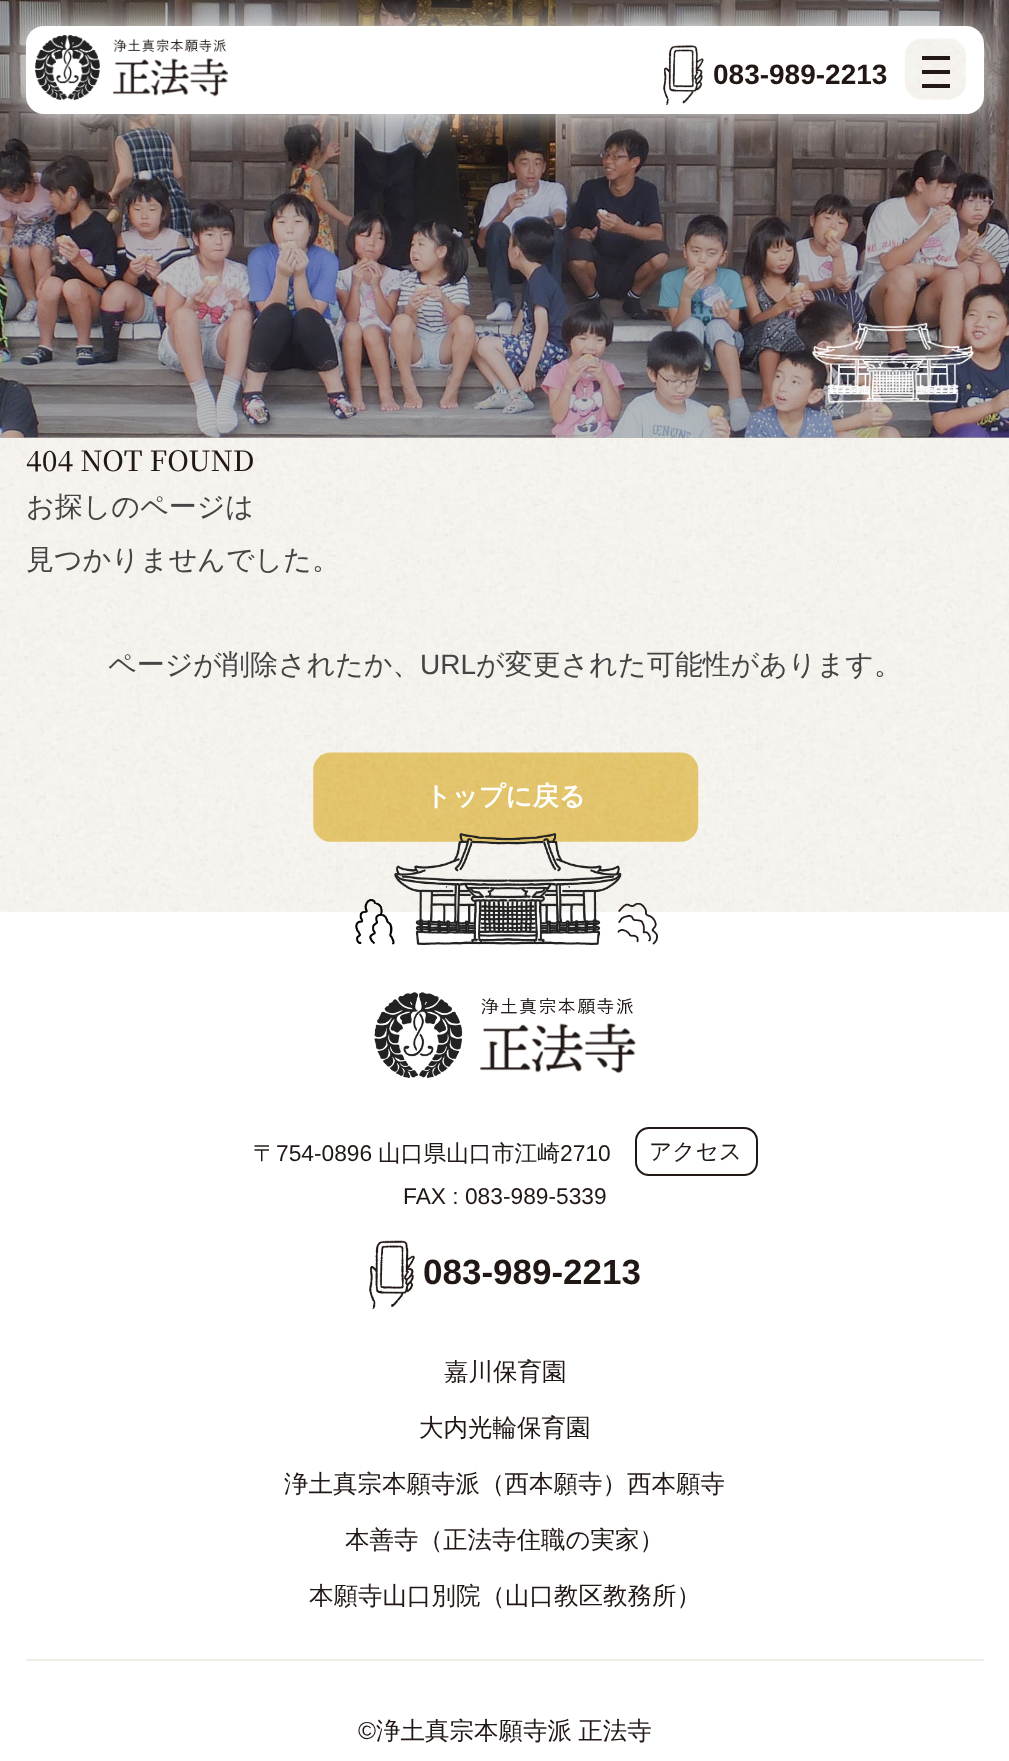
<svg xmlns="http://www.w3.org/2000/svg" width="1009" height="1761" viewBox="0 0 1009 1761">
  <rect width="100%" height="100%" fill="rgb(255,255,255)"/>
  <image x="0" y="437" width="1009" height="475" href="pic1.png"/>
  <image x="0" y="0" width="1009" height="438" href="pic5.png"/>
  <rect x="0" y="0" width="1009" height="438" fill="rgba(34,34,34,0.3)"/>
  <rect x="26" y="26" width="958" height="88" rx="18" fill="rgb(244,243,240)" filter="blur(17.5px)"/>
  <rect x="26" y="26" width="958" height="88" rx="18" fill="rgb(255,255,255)"/>
  <image x="35" y="35" width="193" height="65" href="pic2.png"/>
  <image x="663" y="45" width="41" height="60" href="pic3.png"/>
  <text x="713" y="84" font-family="Liberation Sans" font-size="28" font-weight="bold" fill="rgb(33,24,21)">083-989-2213</text>
  <image x="904" y="38" width="62" height="62" href="pic4.png"/>
  <rect x="922" y="56" width="28" height="4" fill="rgb(35,24,21)"/>
  <rect x="922" y="70" width="28" height="4" fill="rgb(35,24,21)"/>
  <rect x="922" y="84" width="28" height="4" fill="rgb(35,24,21)"/>
  <image x="812" y="322" width="162" height="81" href="pic6.png"/>
  <text x="26" y="471" font-family="Noto Serif JP" font-size="28" font-weight="200" fill="rgb(33,24,21)">404 NOT FOUND</text>
  <g font-family="WenQuanYi Zen Hei" font-size="28" font-weight="500" fill="rgb(68,68,68)">
    <text>
      <tspan x="26" y="516">お探しのページは</tspan>
      <tspan x="26" y="569">見つかりませんでした。</tspan>
    </text>
    <text x="108" y="674">ページが削除されたか、</text>
  </g>
  <text x="420" y="674" font-family="Liberation Sans" font-size="28" fill="rgb(68,68,68)">URL</text>
  <text x="476" y="674" font-family="WenQuanYi Zen Hei" font-size="28" font-weight="500" fill="rgb(68,68,68)">が変更された可能性があります。</text>
  <image x="313" y="752" width="386" height="90" href="pic7.png"/>
  <text x="425" y="805" font-family="WenQuanYi Zen Hei" font-size="26.25" font-weight="bold" fill="rgb(255,255,255)">トップに戻る</text>
  <image x="355" y="833" width="303" height="112" href="pic8.png"/>
  <image x="374" y="992" width="262" height="86" href="pic9.png"/>
  <text x="253" y="1161" font-family="WenQuanYi Zen Hei" font-size="22.75" font-weight="500" fill="rgb(33,24,21)">〒</text>
  <text x="276" y="1161" font-family="Liberation Sans" font-size="22.75" fill="rgb(33,24,21)">754-0896</text>
  <text x="378" y="1161" font-family="WenQuanYi Zen Hei" font-size="22.75" font-weight="500" fill="rgb(33,24,21)">山口県山口市江崎</text>
  <text x="560" y="1161" font-family="Liberation Sans" font-size="22.75" fill="rgb(33,24,21)">2710</text>
  <rect x="636" y="1128" width="121" height="47" rx="13" fill="none" stroke="rgb(33,24,21)" stroke-width="2"/>
  <text x="649" y="1159" font-family="WenQuanYi Zen Hei" font-size="22.75" font-weight="500" fill="rgb(33,24,21)">アクセス</text>
  <text x="403" y="1204" font-family="Liberation Sans" font-size="22.75" fill="rgb(33,24,21)">FAX : 083-989-5339</text>
  <image x="369" y="1240" width="46" height="69" href="pic10.png"/>
  <text x="423" y="1284" font-family="Liberation Sans" font-size="35" font-weight="bold" fill="rgb(33,24,21)">083-989-2213</text>
  <g font-family="WenQuanYi Zen Hei" font-size="24.5" font-weight="500" fill="rgb(33,24,21)">
    <text x="444" y="1380">嘉川保育園</text>
    <text x="419" y="1436">大内光輪保育園</text>
    <text x="284" y="1492">浄土真宗本願寺派（西本願寺）西本願寺</text>
    <text x="345" y="1548">本善寺（正法寺住職の実家）</text>
    <text x="309" y="1604">本願寺山口別院（山口教区教務所）</text>
  </g>
  <rect x="26" y="1659" width="958" height="2" fill="rgb(239,237,228)"/>
  <text x="358" y="1739" font-family="Liberation Sans" font-size="24.5" fill="rgb(33,24,21)">©</text>
  <text x="376" y="1739" word-spacing="-1" font-family="WenQuanYi Zen Hei" font-size="24.5" font-weight="500" fill="rgb(33,24,21)">浄土真宗本願寺派 正法寺</text>
</svg>
